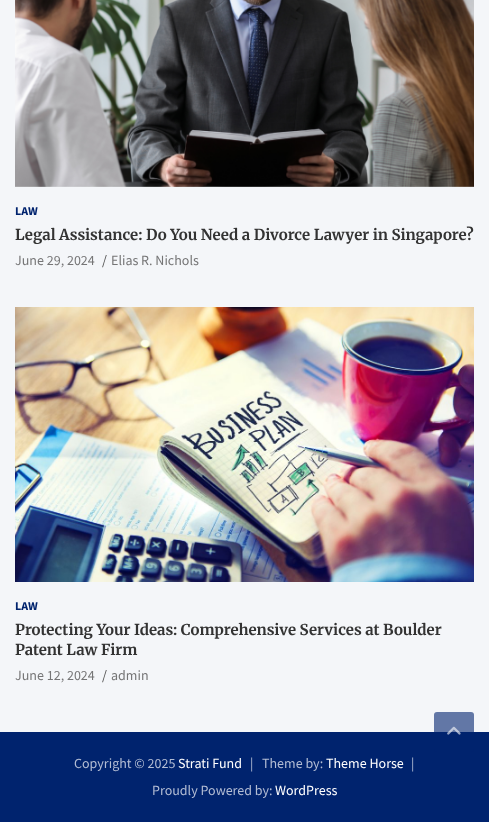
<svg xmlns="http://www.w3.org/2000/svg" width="489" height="822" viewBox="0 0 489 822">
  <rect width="100%" height="100%" fill="rgb(244,246,249)"/>
  <image x="15" y="0" width="459" height="187" href="pic1.png"/>
  <text x="15" y="215" font-family="Source Sans Pro" font-size="12" font-weight="bold" fill="rgb(0,35,110)">LAW</text>
  <text x="15" y="240" font-family="Merriweather" font-size="15" font-weight="bold" fill="rgb(51,51,51)">Legal Assistance: Do You Need a Divorce Lawyer in Singapore?</text>
  <text x="15" y="265" font-family="Source Sans Pro" font-size="14" fill="rgb(117,117,118)">June 29, 2024</text>
  <text x="102" y="265" font-family="Source Sans Pro" font-size="14" fill="rgb(85,85,85)">/</text>
  <text x="111" y="265" font-family="Source Sans Pro" font-size="14" fill="rgb(117,117,118)">Elias R. Nichols</text>
  <image x="15" y="307" width="459" height="275" href="pic2.png"/>
  <text x="15" y="610" font-family="Source Sans Pro" font-size="12" font-weight="bold" fill="rgb(0,35,110)">LAW</text>
  <g font-family="Merriweather" font-size="15" font-weight="bold" fill="rgb(51,51,51)">
    <text>
      <tspan x="15" y="635">Protecting Your Ideas: Comprehensive Services at Boulder</tspan>
      <tspan x="15" y="655">Patent Law Firm</tspan>
    </text>
  </g>
  <text x="15" y="680" font-family="Source Sans Pro" font-size="14" fill="rgb(117,117,118)">June 12, 2024</text>
  <text x="102" y="680" font-family="Source Sans Pro" font-size="14" fill="rgb(85,85,85)">/</text>
  <text x="111" y="680" font-family="Source Sans Pro" font-size="14" fill="rgb(117,117,118)">admin</text>
  <rect x="0" y="732" width="489" height="90" fill="rgb(0,35,110)"/>
  <text x="74" y="768" font-family="Source Sans Pro" font-size="14" fill="rgb(179,189,212)">Copyright © 2025</text>
  <text x="178" y="768" font-family="Source Sans Pro" font-size="14" fill="rgb(255,255,255)">Strati Fund</text>
  <g font-family="Source Sans Pro" font-size="14" fill="rgb(179,189,212)">
    <text x="250" y="768">|</text>
    <text x="262" y="768">Theme by:</text>
  </g>
  <text x="326" y="768" font-family="Source Sans Pro" font-size="14" fill="rgb(255,255,255)">Theme Horse</text>
  <g font-family="Source Sans Pro" font-size="14" fill="rgb(179,189,212)">
    <text x="411" y="768">|</text>
    <text x="152" y="795">Proudly Powered by:</text>
  </g>
  <text x="275" y="795" font-family="Source Sans Pro" font-size="14" fill="rgb(255,255,255)">WordPress</text>
  <rect x="434" y="712" width="40" height="40" rx="3" fill="rgba(0,35,110,0.6)"/>
  <image x="447" y="726" width="14" height="9" href="pic3.png"/>
</svg>
